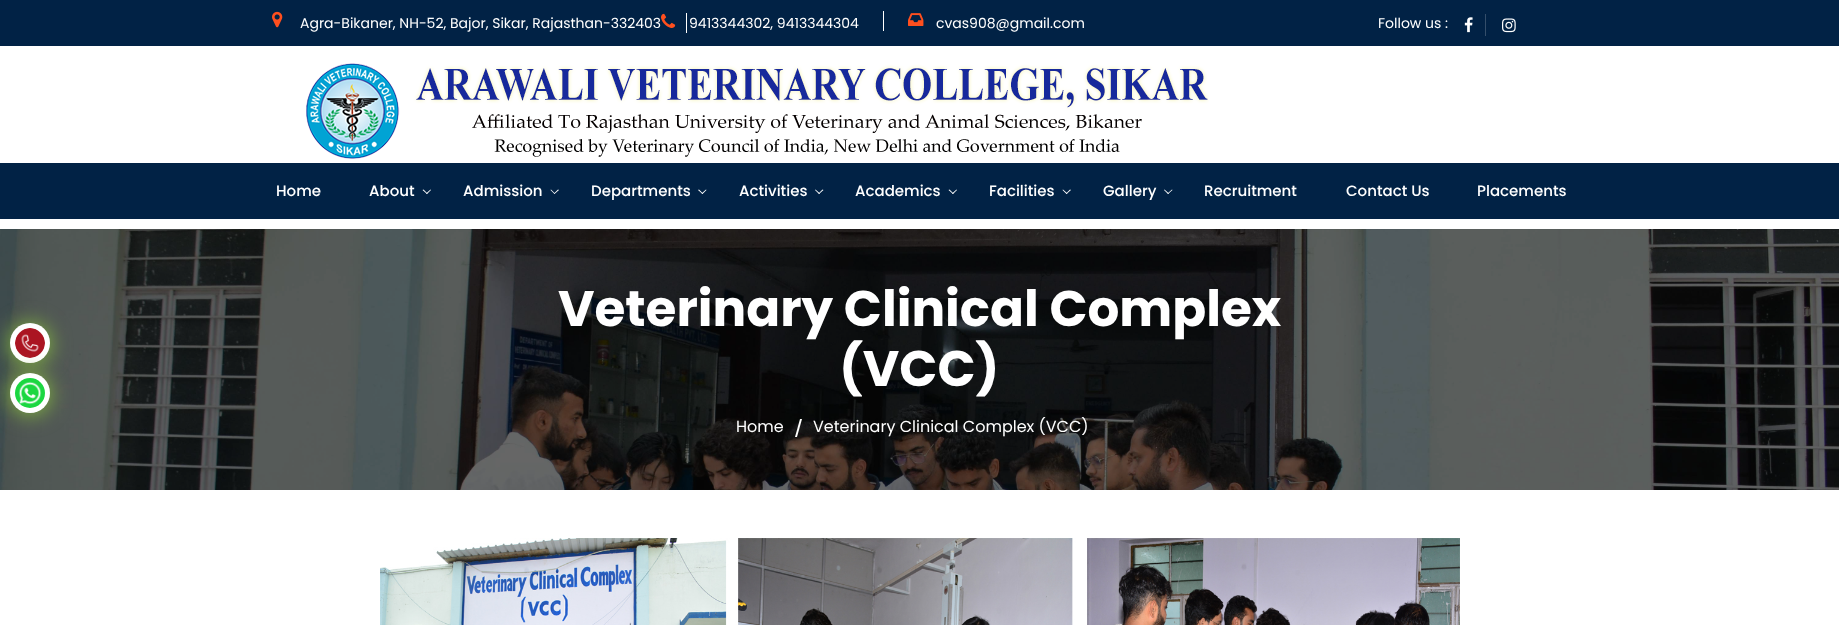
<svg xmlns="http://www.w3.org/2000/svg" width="1839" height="625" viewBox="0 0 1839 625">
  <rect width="100%" height="100%" fill="rgb(255,255,255)"/>
  <image x="0" y="229" width="1839" height="261" href="pic9.png"/>
  <rect x="9" y="323" width="42" height="42" rx="21" fill="rgb(130,180,64)" filter="blur(10px)"/>
  <circle cx="30" cy="343" r="20" fill="rgb(255,255,255)"/>
  <image x="15" y="328" width="30" height="30" href="pic1.png"/>
  <rect x="9" y="373" width="42" height="42" rx="21" fill="rgb(130,180,64)" filter="blur(10px)"/>
  <circle cx="30" cy="393" r="20" fill="rgb(255,255,255)"/>
  <image x="15" y="378" width="30" height="30" href="pic2.png"/>
  <rect x="0" y="0" width="1839" height="46" fill="rgb(1,34,69)"/>
  <image x="272" y="11" width="11" height="17" href="pic3.png"/>
  <text x="300" y="28" font-family="Poppins" font-size="14" fill="rgb(255,255,255)">Agra-Bikaner, NH-52, Bajor, Sikar, Rajasthan-332403</text>
  <rect x="686" y="13" width="1" height="20" fill="rgb(255,255,255)"/>
  <image x="661" y="13" width="15" height="15" href="pic4.png"/>
  <text x="689" y="28" font-family="Poppins" font-size="14" fill="rgb(255,255,255)">9413344302, 9413344304</text>
  <rect x="883" y="11" width="1" height="20" fill="rgb(255,255,255)"/>
  <image x="908" y="13" width="16" height="13" href="pic5.png"/>
  <g font-family="Poppins" font-size="14" fill="rgb(255,255,255)">
    <text x="936" y="28">cvas908@gmail.com</text>
    <text x="1378" y="28">Follow us :</text>
  </g>
  <image x="1464" y="17" width="9" height="16" href="pic6.png"/>
  <rect x="1485" y="14" width="1" height="22" fill="rgb(52,78,106)"/>
  <image x="1502" y="18" width="14" height="15" href="pic7.png"/>
  <image x="306" y="63" width="903" height="96" href="pic8.png"/>
  <rect x="0" y="163" width="1839" height="56" fill="rgb(1,34,69)"/>
  <g font-family="Poppins" font-size="15" font-weight="500" fill="rgb(255,255,255)">
    <text x="276" y="196">Home</text>
    <text x="369" y="196">About</text>
  </g>
  <path d="M426 193.5L430.5 189.5L431 190L427 194Z" fill="rgb(255,255,255)"/>
  <path d="M422.5 190L423.5 189.5L427.5 193.5L427 194Z" fill="rgb(255,255,255)"/>
  <text x="463" y="196" font-family="Poppins" font-size="15" font-weight="500" fill="rgb(255,255,255)">Admission</text>
  <path d="M554 193.5L558 189.5L559 190L554.5 194Z" fill="rgb(255,255,255)"/>
  <path d="M550.5 190L551 189.5L555 193.5L554.5 194Z" fill="rgb(255,255,255)"/>
  <text x="591" y="196" font-family="Poppins" font-size="15" font-weight="500" fill="rgb(255,255,255)">Departments</text>
  <path d="M701.5 193.5L706 189.5L706.5 190L702.5 194Z" fill="rgb(255,255,255)"/>
  <path d="M698 190L699 189.5L703 193.5L702.5 194Z" fill="rgb(255,255,255)"/>
  <text x="739" y="196" font-family="Poppins" font-size="15" font-weight="500" fill="rgb(255,255,255)">Activities</text>
  <path d="M818.5 193.5L822.5 189.5L823.5 190L819 194Z" fill="rgb(255,255,255)"/>
  <path d="M815 190L815.5 189.5L820 193.5L819 194Z" fill="rgb(255,255,255)"/>
  <text x="855" y="196" font-family="Poppins" font-size="15" font-weight="500" fill="rgb(255,255,255)">Academics</text>
  <path d="M952 193.5L956.5 189.5L957 190L953 194Z" fill="rgb(255,255,255)"/>
  <path d="M948.5 190L949.5 189.5L953.5 193.5L953 194Z" fill="rgb(255,255,255)"/>
  <text x="989" y="196" font-family="Poppins" font-size="15" font-weight="500" fill="rgb(255,255,255)">Facilities</text>
  <path d="M1066 193.5L1070 189.5L1071 190L1066.5 194Z" fill="rgb(255,255,255)"/>
  <path d="M1062.5 190L1063 189.5L1067.5 193.5L1066.5 194Z" fill="rgb(255,255,255)"/>
  <text x="1103" y="196" font-family="Poppins" font-size="15" font-weight="500" fill="rgb(255,255,255)">Gallery</text>
  <path d="M1167.5 193.5L1172 189.5L1172.5 190L1168 194Z" fill="rgb(255,255,255)"/>
  <path d="M1164 190L1164.5 189.5L1169 193.5L1168 194Z" fill="rgb(255,255,255)"/>
  <g font-family="Poppins" font-size="15" font-weight="500" fill="rgb(255,255,255)">
    <text x="1204" y="196">Recruitment</text>
    <text x="1346" y="196">Contact Us</text>
    <text x="1477" y="196">Placements</text>
  </g>
  <g font-family="Poppins" font-size="50" font-weight="bold" fill="rgb(255,255,255)">
    <text x="558" y="326">Veterinary Clinical Complex</text>
    <text x="839" y="386">(VCC)</text>
  </g>
  <text x="736" y="432" font-family="Poppins" font-size="16" fill="rgb(255,255,255)">Home</text>
  <path d="M800 419H802L797 437H795Z" fill="rgb(255,255,255)"/>
  <text x="813" y="432" font-family="Poppins" font-size="16" fill="rgb(255,255,255)">Veterinary Clinical Complex (VCC)</text>
  <image x="380" y="538" width="1080" height="87" href="pic10.png"/>
</svg>
